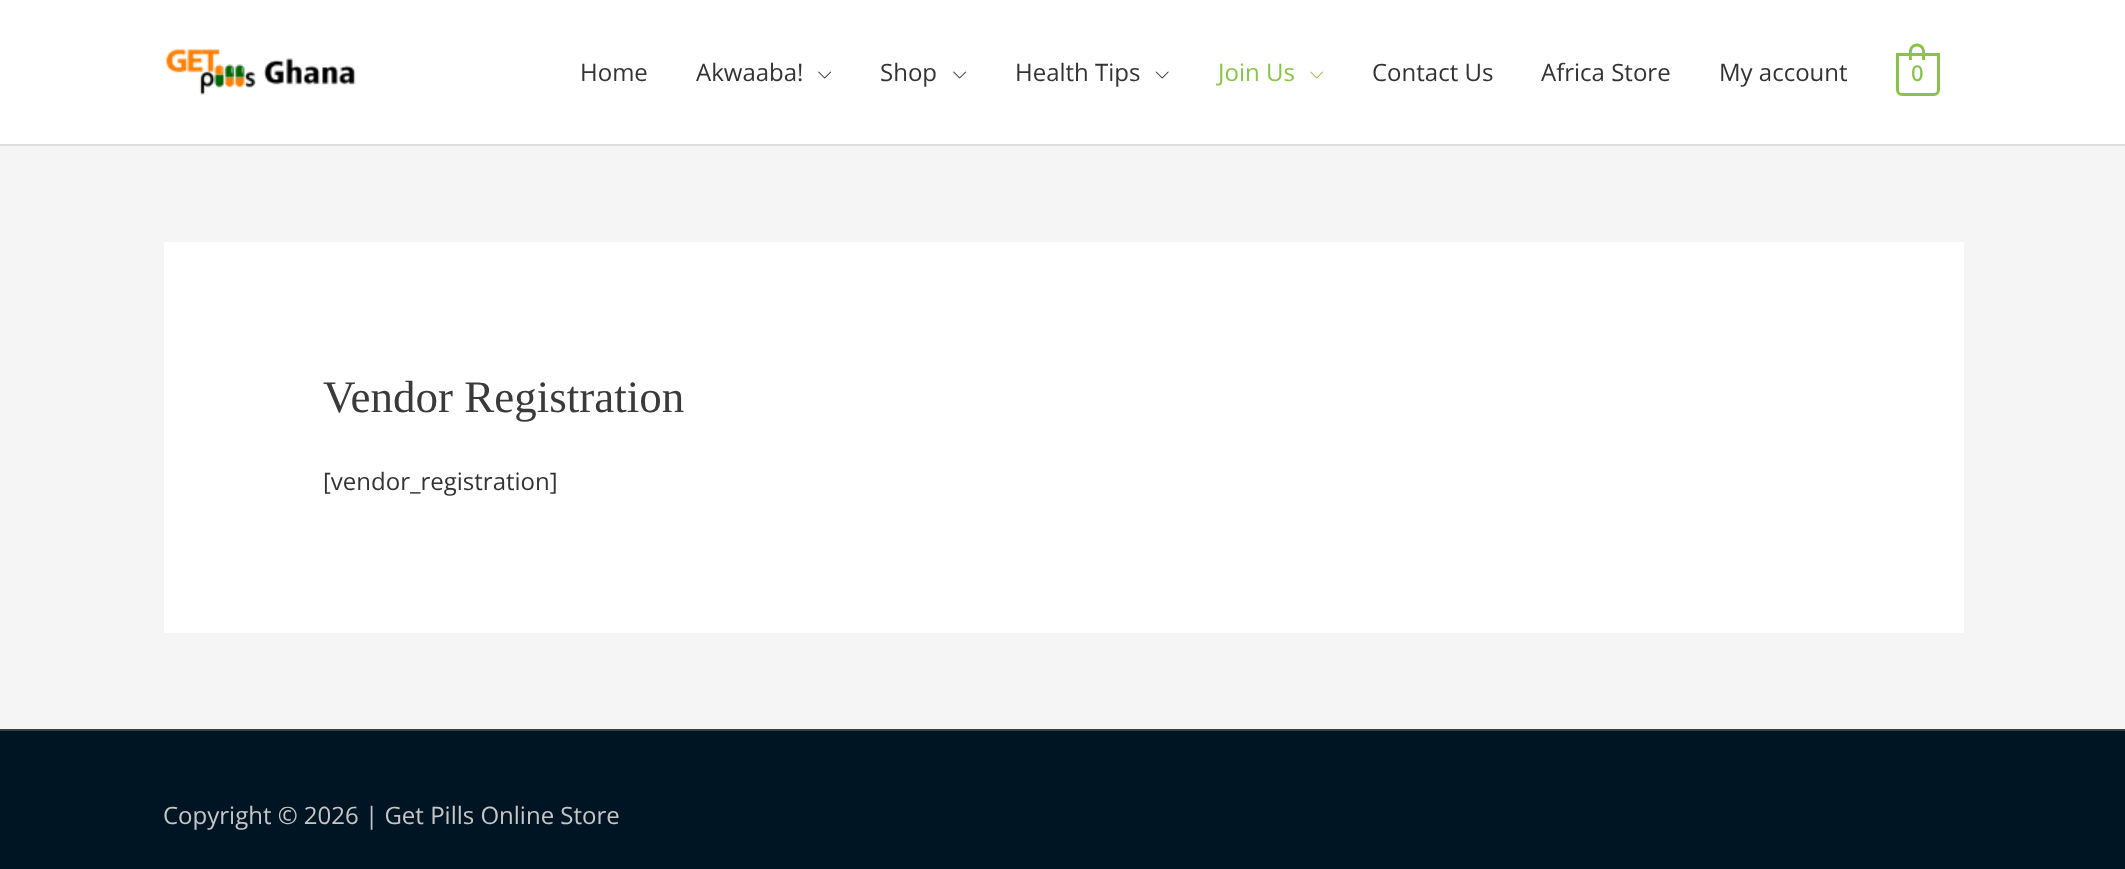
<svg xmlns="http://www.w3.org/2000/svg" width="2125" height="869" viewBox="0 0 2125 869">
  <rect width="100%" height="100%" fill="rgb(245,245,245)"/>
  <rect x="0" y="0" width="2125" height="144" fill="rgb(255,255,255)"/>
  <rect x="0" y="144" width="2125" height="2" fill="rgb(221,221,221)"/>
  <image x="166" y="49" width="190" height="46" href="pic1.png"/>
  <g font-family="Open Sans" font-size="24" fill="rgb(51,51,51)">
    <text x="580" y="81">Home</text>
    <text x="696" y="81">Akwaaba!</text>
  </g>
  <image x="818" y="71" width="14" height="8" href="pic2.png"/>
  <text x="880" y="81" font-family="Open Sans" font-size="24" fill="rgb(51,51,51)">Shop</text>
  <image x="953" y="71" width="14" height="8" href="pic2.png"/>
  <text x="1015" y="81" font-family="Open Sans" font-size="24" fill="rgb(51,51,51)">Health Tips</text>
  <image x="1155" y="71" width="14" height="8" href="pic3.png"/>
  <text x="1218" y="81" font-family="Open Sans" font-size="24" fill="rgb(139,195,74)">Join Us</text>
  <image x="1310" y="71" width="14" height="8" href="pic4.png"/>
  <g font-family="Open Sans" font-size="24" fill="rgb(51,51,51)">
    <text x="1372" y="81">Contact Us</text>
    <text x="1541" y="81">Africa Store</text>
    <text x="1719" y="81">My account</text>
  </g>
  <path d="M1897.5 54.5H1938.5V90C1938.5 92.5 1936.5 94.5 1934 94.5H1902C1899.5 94.5 1897.5 92.5 1897.5 90Z" fill="none" stroke="rgb(139,195,74)" stroke-width="3"/>
  <path d="M1917 43.5C1921.5 43.5 1925 47 1925 52V60H1909V52C1909 47 1912.5 43.5 1917 43.5ZM1917 46.5C1924 46.5 1922 55.5 1922 60H1912C1912 55.5 1910 46.5 1917 46.5Z" fill="rgb(139,195,74)" fill-rule="evenodd"/>
  <text x="1911" y="81" font-family="Open Sans" font-size="21" font-weight="bold" fill="rgb(139,195,74)">0</text>
  <rect x="164" y="242" width="1800" height="391" fill="rgb(255,255,255)"/>
  <text x="323" y="412" font-family="Liberation Serif" font-size="45" fill="rgb(58,58,58)">Vendor Registration</text>
  <text x="323" y="490" font-family="Open Sans" font-size="24" fill="rgb(51,51,51)">[vendor_registration]</text>
  <rect x="0" y="729" width="2125" height="2" fill="rgb(63,63,63)"/>
  <rect x="0" y="731" width="2125" height="138" fill="rgb(0,21,36)"/>
  <text x="163" y="824" font-family="Open Sans" font-size="24" fill="rgb(198,198,198)">Copyright © 2026 | Get Pills Online Store</text>
</svg>
